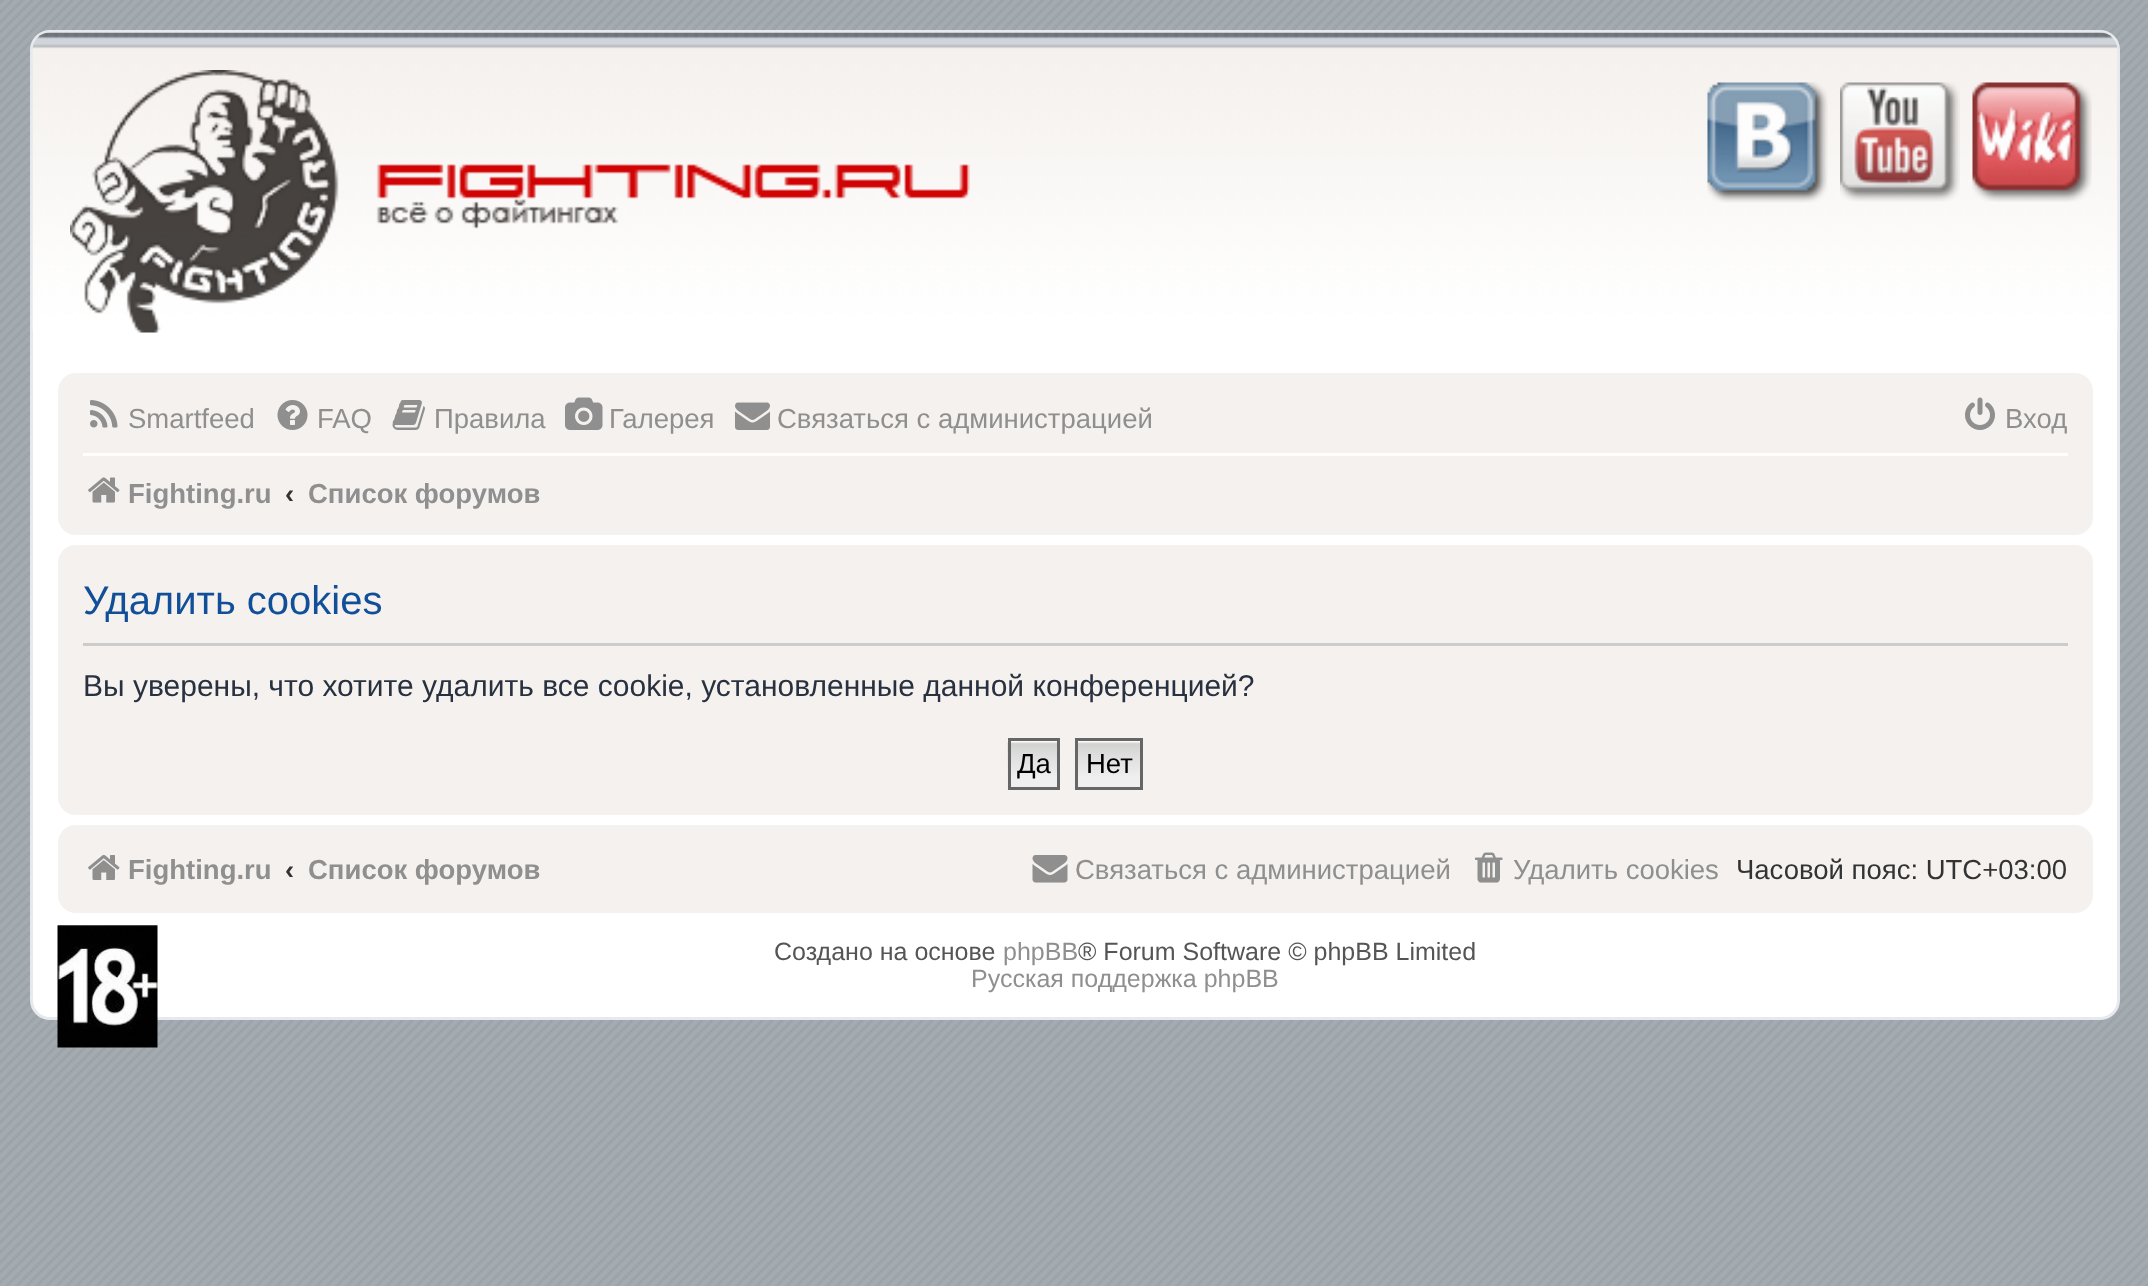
<svg xmlns="http://www.w3.org/2000/svg" width="2148" height="1286" viewBox="0 0 2148 1286">
  <rect width="100%" height="100%" fill="rgb(255,255,255)"/>
  <image x="0" y="1050" width="2148" height="236" href="pic1.png"/>
  <image x="0" y="0" width="2148" height="1050" href="pic2.png"/>
  <rect x="31.5" y="31.5" width="2087" height="987" rx="18.5" fill="rgb(255,255,255)" stroke="rgb(230,233,237)" stroke-width="3"/>
  <image x="32" y="32" width="2086" height="300" href="pic3.png"/>
  <image x="70" y="70" width="900" height="263" href="pic4.png"/>
  <image x="1707" y="82" width="121" height="121" href="pic5.png"/>
  <image x="1840" y="82" width="120" height="120" href="pic6.png"/>
  <image x="1972" y="82" width="120" height="120" href="pic7.png"/>
  <rect x="58" y="373" width="2035" height="162" rx="18" fill="rgb(245,241,238)"/>
  <image x="90" y="400" width="28" height="28" href="pic8.png"/>
  <text x="128" y="428" font-family="Liberation Sans" font-size="27.5" fill="rgb(143,143,143)">Smartfeed</text>
  <image x="277" y="400" width="31" height="30" href="pic9.png"/>
  <text x="317" y="428" font-family="Liberation Sans" font-size="27.5" fill="rgb(143,143,143)">FAQ</text>
  <image x="392" y="400" width="33" height="30" href="pic10.png"/>
  <text x="434" y="428" font-family="Liberation Sans" font-size="27.5" fill="rgb(143,143,143)">Правила</text>
  <image x="565" y="397" width="38" height="33" href="pic11.png"/>
  <text x="609" y="428" font-family="Liberation Sans" font-size="27.5" fill="rgb(143,143,143)">Галерея</text>
  <image x="735" y="402" width="35" height="28" href="pic12.png"/>
  <text x="777" y="428" font-family="Liberation Sans" font-size="27.5" fill="rgb(143,143,143)">Связаться с администрацией</text>
  <image x="1965" y="397" width="30" height="33" href="pic13.png"/>
  <text x="2005" y="428" font-family="Liberation Sans" font-size="27.5" fill="rgb(143,143,143)">Вход</text>
  <rect x="83" y="453" width="1985" height="3" fill="rgb(255,255,255)"/>
  <image x="88" y="477" width="32" height="26" href="pic14.png"/>
  <text x="128" y="503" font-family="Liberation Sans" font-size="27.5" font-weight="bold" fill="rgb(143,143,143)">Fighting.ru</text>
  <text x="285" y="503" font-family="Liberation Sans" font-size="27.5" font-weight="bold" fill="rgb(51,51,51)">‹</text>
  <text x="308" y="503" font-family="Liberation Sans" font-size="27.5" font-weight="bold" fill="rgb(143,143,143)">Список форумов</text>
  <rect x="58" y="545" width="2035" height="270" rx="18" fill="rgb(245,241,238)"/>
  <rect x="83" y="643" width="1985" height="3" fill="rgb(204,204,204)"/>
  <text x="83" y="614" font-family="Liberation Sans" font-size="40" fill="rgb(17,80,152)">Удалить cookies</text>
  <text x="83" y="696" font-family="Liberation Sans" font-size="30" fill="rgb(40,49,63)">Вы уверены, что хотите удалить все cookie, установленные данной конференцией?</text>
  <image x="1007" y="740" width="50" height="50" href="pic15.png"/>
  <rect x="1009.5" y="739.5" width="49" height="49" fill="none" stroke="rgb(102,102,102)" stroke-width="3"/>
  <text x="1017" y="773" font-family="Liberation Sans" font-size="27.5" fill="rgb(0,0,0)">Да</text>
  <image x="1078" y="741" width="62" height="46" href="pic16.png"/>
  <rect x="1076.5" y="739.5" width="65" height="49" fill="none" stroke="rgb(102,102,102)" stroke-width="3"/>
  <text x="1086" y="773" font-family="Liberation Sans" font-size="27.5" fill="rgb(0,0,0)">Нет</text>
  <rect x="58" y="825" width="2035" height="88" rx="18" fill="rgb(245,241,238)"/>
  <image x="88" y="855" width="32" height="25" href="pic17.png"/>
  <text x="128" y="879" font-family="Liberation Sans" font-size="27.5" font-weight="bold" fill="rgb(143,143,143)">Fighting.ru</text>
  <text x="285" y="879" font-family="Liberation Sans" font-size="27.5" font-weight="bold" fill="rgb(51,51,51)">‹</text>
  <text x="308" y="879" font-family="Liberation Sans" font-size="27.5" font-weight="bold" fill="rgb(143,143,143)">Список форумов</text>
  <image x="1032" y="855" width="36" height="28" href="pic18.png"/>
  <text x="1075" y="879" font-family="Liberation Sans" font-size="27.5" fill="rgb(143,143,143)">Связаться с администрацией</text>
  <image x="1475" y="852" width="28" height="31" href="pic19.png"/>
  <text x="1513" y="879" font-family="Liberation Sans" font-size="27.5" fill="rgb(143,143,143)">Удалить cookies</text>
  <text x="1736" y="879" font-family="Liberation Sans" font-size="27.5" fill="rgb(51,51,51)">Часовой пояс: UTC+03:00</text>
  <image x="57" y="925" width="101" height="123" href="pic20.png"/>
  <text x="774" y="960" font-family="Liberation Sans" font-size="25" fill="rgb(85,85,85)">Создано на основе</text>
  <text x="1003" y="960" font-family="Liberation Sans" font-size="25" fill="rgb(143,143,143)">phpBB</text>
  <text x="1078" y="960" font-family="Liberation Sans" font-size="25" fill="rgb(85,85,85)">® Forum Software © phpBB Limited</text>
  <text x="971" y="987" font-family="Liberation Sans" font-size="25" fill="rgb(143,143,143)">Русская поддержка phpBB</text>
</svg>
